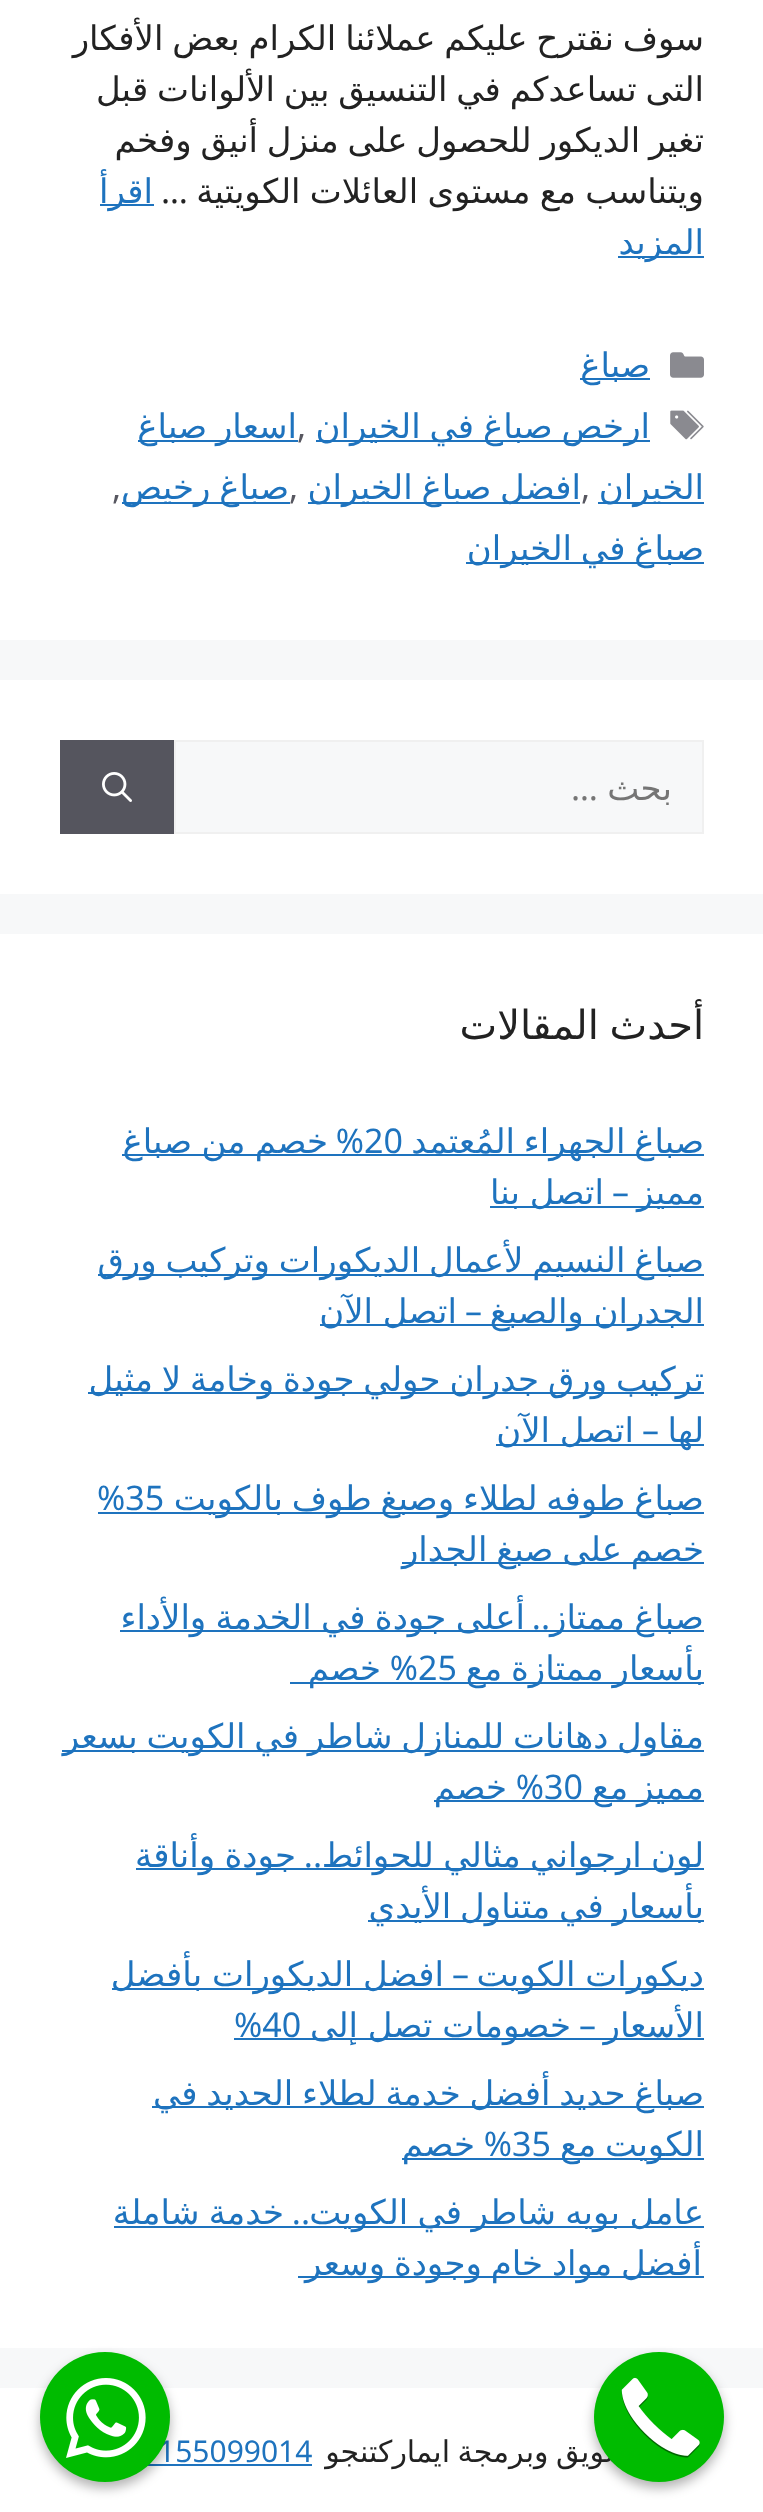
<svg xmlns="http://www.w3.org/2000/svg" width="763" height="2512" viewBox="0 0 763 2512">
  <rect width="100%" height="100%" fill="rgb(247,248,249)"/>
  <rect x="0" y="0" width="763" height="640" fill="rgb(255,255,255)"/>
  <g font-family="DejaVu Sans" font-size="34" direction="rtl" fill="rgb(34,34,34)">
    <text>
      <tspan x="704" y="50" word-spacing="-2">سوف نقترح عليكم عملائنا الكرام بعض الأفكار</tspan>
      <tspan x="704" y="101" word-spacing="-2">التى تساعدكم في التنسيق بين الألوانات قبل</tspan>
      <tspan x="704" y="152" word-spacing="-2">تغير الديكور للحصول على منزل أنيق وفخم</tspan>
      <tspan x="704" y="203" word-spacing="-1.5">ويتناسب مع مستوى العائلات الكويتية</tspan>
    </text>
  </g>
  <text x="188" y="203" font-family="Noto Sans" font-size="34" direction="rtl" fill="rgb(34,34,34)">…</text>
  <rect x="100" y="204" width="54" height="2" fill="rgb(30,115,190)"/>
  <text x="153" y="203" font-family="DejaVu Sans" font-size="34" direction="rtl" fill="rgb(30,115,190)">اقرأ</text>
  <rect x="618" y="256" width="86" height="2" fill="rgb(30,115,190)"/>
  <text x="704" y="254" font-family="DejaVu Sans" font-size="34" direction="rtl" fill="rgb(30,115,190)">المزيد</text>
  <image x="670" y="352" width="34" height="26" href="pic1.png"/>
  <rect x="580" y="378" width="70" height="2" fill="rgb(30,115,190)"/>
  <text x="650" y="377" font-family="DejaVu Sans" font-size="34" direction="rtl" fill="rgb(30,115,190)">صباغ</text>
  <image x="670" y="410" width="34" height="30" href="pic2.png"/>
  <rect x="316" y="440" width="334" height="2" fill="rgb(30,115,190)"/>
  <text x="650" y="438" word-spacing="-2" font-family="DejaVu Sans" font-size="34" direction="rtl" fill="rgb(30,115,190)">ارخص صباغ في الخيران</text>
  <text x="297" y="438" font-family="Noto Sans" font-size="34" fill="rgb(87,87,96)">,</text>
  <rect x="138" y="440" width="160" height="2" fill="rgb(30,115,190)"/>
  <text x="297" y="438" word-spacing="-2" font-family="DejaVu Sans" font-size="34" direction="rtl" fill="rgb(30,115,190)">اسعار صباغ</text>
  <rect x="598" y="502" width="106" height="2" fill="rgb(30,115,190)"/>
  <text x="704" y="499" font-family="DejaVu Sans" font-size="34" direction="rtl" fill="rgb(30,115,190)">الخيران</text>
  <text x="581" y="499" font-family="Noto Sans" font-size="34" fill="rgb(87,87,96)">,</text>
  <rect x="308" y="502" width="272" height="2" fill="rgb(30,115,190)"/>
  <text x="581" y="499" word-spacing="-2" font-family="DejaVu Sans" font-size="34" direction="rtl" fill="rgb(30,115,190)">افضل صباغ الخيران</text>
  <text x="289" y="499" font-family="Noto Sans" font-size="34" fill="rgb(87,87,96)">,</text>
  <rect x="122" y="502" width="168" height="2" fill="rgb(30,115,190)"/>
  <text x="289" y="499" word-spacing="-2" font-family="DejaVu Sans" font-size="34" direction="rtl" fill="rgb(30,115,190)">صباغ رخيص</text>
  <text x="112" y="499" font-family="Noto Sans" font-size="34" fill="rgb(87,87,96)">,</text>
  <rect x="466" y="562" width="238" height="2" fill="rgb(30,115,190)"/>
  <text x="704" y="560" word-spacing="-2" font-family="DejaVu Sans" font-size="34" direction="rtl" fill="rgb(30,115,190)">صباغ في الخيران</text>
  <rect x="0" y="680" width="763" height="214" fill="rgb(255,255,255)"/>
  <rect x="175" y="741" width="528" height="92" fill="rgb(247,248,249)" stroke="rgb(240,240,240)" stroke-width="2"/>
  <text x="672" y="800" font-family="DejaVu Sans" font-size="34" direction="rtl" fill="rgb(117,117,117)">بحث</text>
  <text x="598" y="800" font-family="Noto Sans" font-size="34" direction="rtl" fill="rgb(117,117,117)">…</text>
  <rect x="60" y="740" width="114" height="94" fill="rgb(85,85,94)"/>
  <image x="102" y="772" width="30" height="30" href="pic3.png"/>
  <rect x="0" y="934" width="763" height="1414" fill="rgb(255,255,255)"/>
  <text x="704" y="1039" word-spacing="-2" font-family="DejaVu Sans" font-size="40" direction="rtl" fill="rgb(34,34,34)">أحدث المقالات</text>
  <rect x="122" y="1154" width="582" height="2" fill="rgb(30,115,190)"/>
  <text x="704" y="1153" word-spacing="-2" font-family="DejaVu Sans" font-size="34" direction="rtl" fill="rgb(30,115,190)">صباغ الجهراء المُعتمد</text>
  <text x="364" y="1153" font-family="Noto Sans" font-size="34" fill="rgb(30,115,190)">20</text>
  <text x="364" y="1153" font-family="Noto Sans" font-size="34" direction="rtl" fill="rgb(30,115,190)">%</text>
  <text x="328" y="1153" word-spacing="-1.5" font-family="DejaVu Sans" font-size="34" direction="rtl" fill="rgb(30,115,190)">خصم من صباغ</text>
  <rect x="490" y="1206" width="214" height="2" fill="rgb(30,115,190)"/>
  <text x="704" y="1204" font-family="DejaVu Sans" font-size="34" direction="rtl" fill="rgb(30,115,190)">مميز</text>
  <text x="629" y="1204" font-family="Noto Sans" font-size="34" direction="rtl" fill="rgb(30,115,190)">–</text>
  <text x="604" y="1204" word-spacing="-1" font-family="DejaVu Sans" font-size="34" direction="rtl" fill="rgb(30,115,190)">اتصل بنا</text>
  <rect x="98" y="1274" width="606" height="2" fill="rgb(30,115,190)"/>
  <text x="704" y="1272" word-spacing="-2" font-family="DejaVu Sans" font-size="34" direction="rtl" fill="rgb(30,115,190)">صباغ النسيم لأعمال الديكورات وتركيب ورق</text>
  <rect x="320" y="1324" width="384" height="2" fill="rgb(30,115,190)"/>
  <text x="704" y="1323" word-spacing="-1" font-family="DejaVu Sans" font-size="34" direction="rtl" fill="rgb(30,115,190)">الجدران والصبغ</text>
  <text x="482" y="1323" font-family="Noto Sans" font-size="34" direction="rtl" fill="rgb(30,115,190)">–</text>
  <text x="457" y="1323" word-spacing="-1" font-family="DejaVu Sans" font-size="34" direction="rtl" fill="rgb(30,115,190)">اتصل الآن</text>
  <rect x="88" y="1392" width="616" height="2" fill="rgb(30,115,190)"/>
  <text x="704" y="1391" word-spacing="-2" font-family="DejaVu Sans" font-size="34" direction="rtl" fill="rgb(30,115,190)">تركيب ورق جدران حولي جودة وخامة لا مثيل</text>
  <rect x="496" y="1444" width="208" height="2" fill="rgb(30,115,190)"/>
  <text x="704" y="1442" font-family="DejaVu Sans" font-size="34" direction="rtl" fill="rgb(30,115,190)">لها</text>
  <text x="659" y="1442" font-family="Noto Sans" font-size="34" direction="rtl" fill="rgb(30,115,190)">–</text>
  <text x="634" y="1442" word-spacing="-1" font-family="DejaVu Sans" font-size="34" direction="rtl" fill="rgb(30,115,190)">اتصل الآن</text>
  <rect x="98" y="1512" width="606" height="2" fill="rgb(30,115,190)"/>
  <text x="704" y="1510" word-spacing="-2" font-family="DejaVu Sans" font-size="34" direction="rtl" fill="rgb(30,115,190)">صباغ طوفه لطلاء وصبغ طوف بالكويت</text>
  <text x="97" y="1510" font-family="Noto Sans" font-size="34" fill="rgb(30,115,190)">%35</text>
  <rect x="402" y="1562" width="302" height="2" fill="rgb(30,115,190)"/>
  <text x="704" y="1561" word-spacing="-2" font-family="DejaVu Sans" font-size="34" direction="rtl" fill="rgb(30,115,190)">خصم على صبغ الجدار</text>
  <rect x="120" y="1630" width="584" height="2" fill="rgb(30,115,190)"/>
  <text x="704" y="1629" word-spacing="-1.5" font-family="DejaVu Sans" font-size="34" direction="rtl" fill="rgb(30,115,190)">صباغ ممتاز</text>
  <text x="550" y="1629" font-family="Noto Sans" font-size="34" direction="rtl" fill="rgb(30,115,190)">..</text>
  <text x="525" y="1629" word-spacing="-1.5" font-family="DejaVu Sans" font-size="34" direction="rtl" fill="rgb(30,115,190)">أعلى جودة في الخدمة والأداء</text>
  <rect x="290" y="1682" width="414" height="2" fill="rgb(30,115,190)"/>
  <text x="704" y="1680" word-spacing="-2" font-family="DejaVu Sans" font-size="34" direction="rtl" fill="rgb(30,115,190)">بأسعار ممتازة مع</text>
  <text x="418" y="1680" font-family="Noto Sans" font-size="34" fill="rgb(30,115,190)">25</text>
  <text x="418" y="1680" font-family="Noto Sans" font-size="34" direction="rtl" fill="rgb(30,115,190)">%</text>
  <text x="381" y="1680" font-family="DejaVu Sans" font-size="34" direction="rtl" fill="rgb(30,115,190)">خصم</text>
  <rect x="62" y="1750" width="642" height="2" fill="rgb(30,115,190)"/>
  <text x="704" y="1748" word-spacing="-2" font-family="DejaVu Sans" font-size="34" direction="rtl" fill="rgb(30,115,190)">مقاول دهانات للمنازل شاطر في الكويت بسعر</text>
  <rect x="434" y="1800" width="270" height="2" fill="rgb(30,115,190)"/>
  <text x="704" y="1799" word-spacing="-2" font-family="DejaVu Sans" font-size="34" direction="rtl" fill="rgb(30,115,190)">مميز مع</text>
  <text x="544" y="1799" font-family="Noto Sans" font-size="34" fill="rgb(30,115,190)">30</text>
  <text x="544" y="1799" font-family="Noto Sans" font-size="34" direction="rtl" fill="rgb(30,115,190)">%</text>
  <text x="507" y="1799" font-family="DejaVu Sans" font-size="34" direction="rtl" fill="rgb(30,115,190)">خصم</text>
  <rect x="136" y="1868" width="568" height="2" fill="rgb(30,115,190)"/>
  <text x="704" y="1867" word-spacing="-1.5" font-family="DejaVu Sans" font-size="34" direction="rtl" fill="rgb(30,115,190)">لون ارجواني مثالي للحوائط</text>
  <text x="322" y="1867" font-family="Noto Sans" font-size="34" direction="rtl" fill="rgb(30,115,190)">..</text>
  <text x="296" y="1867" word-spacing="-1.5" font-family="DejaVu Sans" font-size="34" direction="rtl" fill="rgb(30,115,190)">جودة وأناقة</text>
  <rect x="368" y="1920" width="336" height="2" fill="rgb(30,115,190)"/>
  <text x="704" y="1918" word-spacing="-2" font-family="DejaVu Sans" font-size="34" direction="rtl" fill="rgb(30,115,190)">بأسعار في متناول الأيدي</text>
  <rect x="112" y="1988" width="592" height="2" fill="rgb(30,115,190)"/>
  <text x="704" y="1986" word-spacing="-1" font-family="DejaVu Sans" font-size="34" direction="rtl" fill="rgb(30,115,190)">ديكورات الكويت</text>
  <text x="469" y="1986" font-family="Noto Sans" font-size="34" direction="rtl" fill="rgb(30,115,190)">–</text>
  <text x="444" y="1986" word-spacing="-1" font-family="DejaVu Sans" font-size="34" direction="rtl" fill="rgb(30,115,190)">افضل الديكورات بأفضل</text>
  <rect x="234" y="2038" width="470" height="2" fill="rgb(30,115,190)"/>
  <text x="704" y="2037" font-family="DejaVu Sans" font-size="34" direction="rtl" fill="rgb(30,115,190)">الأسعار</text>
  <text x="596" y="2037" font-family="Noto Sans" font-size="34" direction="rtl" fill="rgb(30,115,190)">–</text>
  <text x="571" y="2037" word-spacing="-1" font-family="DejaVu Sans" font-size="34" direction="rtl" fill="rgb(30,115,190)">خصومات تصل إلى</text>
  <text x="234" y="2037" font-family="Noto Sans" font-size="34" fill="rgb(30,115,190)">%40</text>
  <rect x="152" y="2106" width="552" height="2" fill="rgb(30,115,190)"/>
  <text x="704" y="2105" word-spacing="-2" font-family="DejaVu Sans" font-size="34" direction="rtl" fill="rgb(30,115,190)">صباغ حديد أفضل خدمة لطلاء الحديد في</text>
  <rect x="402" y="2158" width="302" height="2" fill="rgb(30,115,190)"/>
  <text x="704" y="2156" word-spacing="-2" font-family="DejaVu Sans" font-size="34" direction="rtl" fill="rgb(30,115,190)">الكويت مع</text>
  <text x="512" y="2156" font-family="Noto Sans" font-size="34" fill="rgb(30,115,190)">35</text>
  <text x="512" y="2156" font-family="Noto Sans" font-size="34" direction="rtl" fill="rgb(30,115,190)">%</text>
  <text x="475" y="2156" font-family="DejaVu Sans" font-size="34" direction="rtl" fill="rgb(30,115,190)">خصم</text>
  <rect x="114" y="2226" width="590" height="2" fill="rgb(30,115,190)"/>
  <text x="704" y="2224" word-spacing="-1.5" font-family="DejaVu Sans" font-size="34" direction="rtl" fill="rgb(30,115,190)">عامل بويه شاطر في الكويت</text>
  <text x="310" y="2224" font-family="Noto Sans" font-size="34" direction="rtl" fill="rgb(30,115,190)">..</text>
  <text x="284" y="2224" word-spacing="-1.5" font-family="DejaVu Sans" font-size="34" direction="rtl" fill="rgb(30,115,190)">خدمة شاملة</text>
  <rect x="298" y="2276" width="406" height="2" fill="rgb(30,115,190)"/>
  <text x="702" y="2275" word-spacing="-2" font-family="DejaVu Sans" font-size="34" direction="rtl" fill="rgb(30,115,190)">أفضل مواد خام وجودة وسعر</text>
  <rect x="0" y="2388" width="763" height="124" fill="rgb(255,255,255)"/>
  <rect x="594" y="2358" width="130" height="130" rx="65" fill="rgba(0,0,0,0.3)" filter="blur(6px)"/>
  <text x="640" y="2462" word-spacing="-2" font-family="DejaVu Sans" font-size="30" direction="rtl" fill="rgb(34,34,34)">تسويق وبرمجة ايماركتنجو</text>
  <circle cx="659" cy="2417" r="65" fill="rgb(0,187,0)"/>
  <image x="621" y="2377" width="79" height="81" href="pic4.png"/>
  <text x="158" y="2462" font-family="Noto Sans" font-size="30" fill="rgb(30,115,190)">155099014</text>
  <rect x="147" y="2464" width="165" height="2" fill="rgb(30,115,190)"/>
  <rect x="40" y="2358" width="130" height="130" rx="65" fill="rgba(0,0,0,0.3)" filter="blur(6px)"/>
  <circle cx="105" cy="2417" r="65" fill="rgb(0,187,0)"/>
  <image x="66" y="2378" width="80" height="80" href="pic5.png"/>
</svg>
